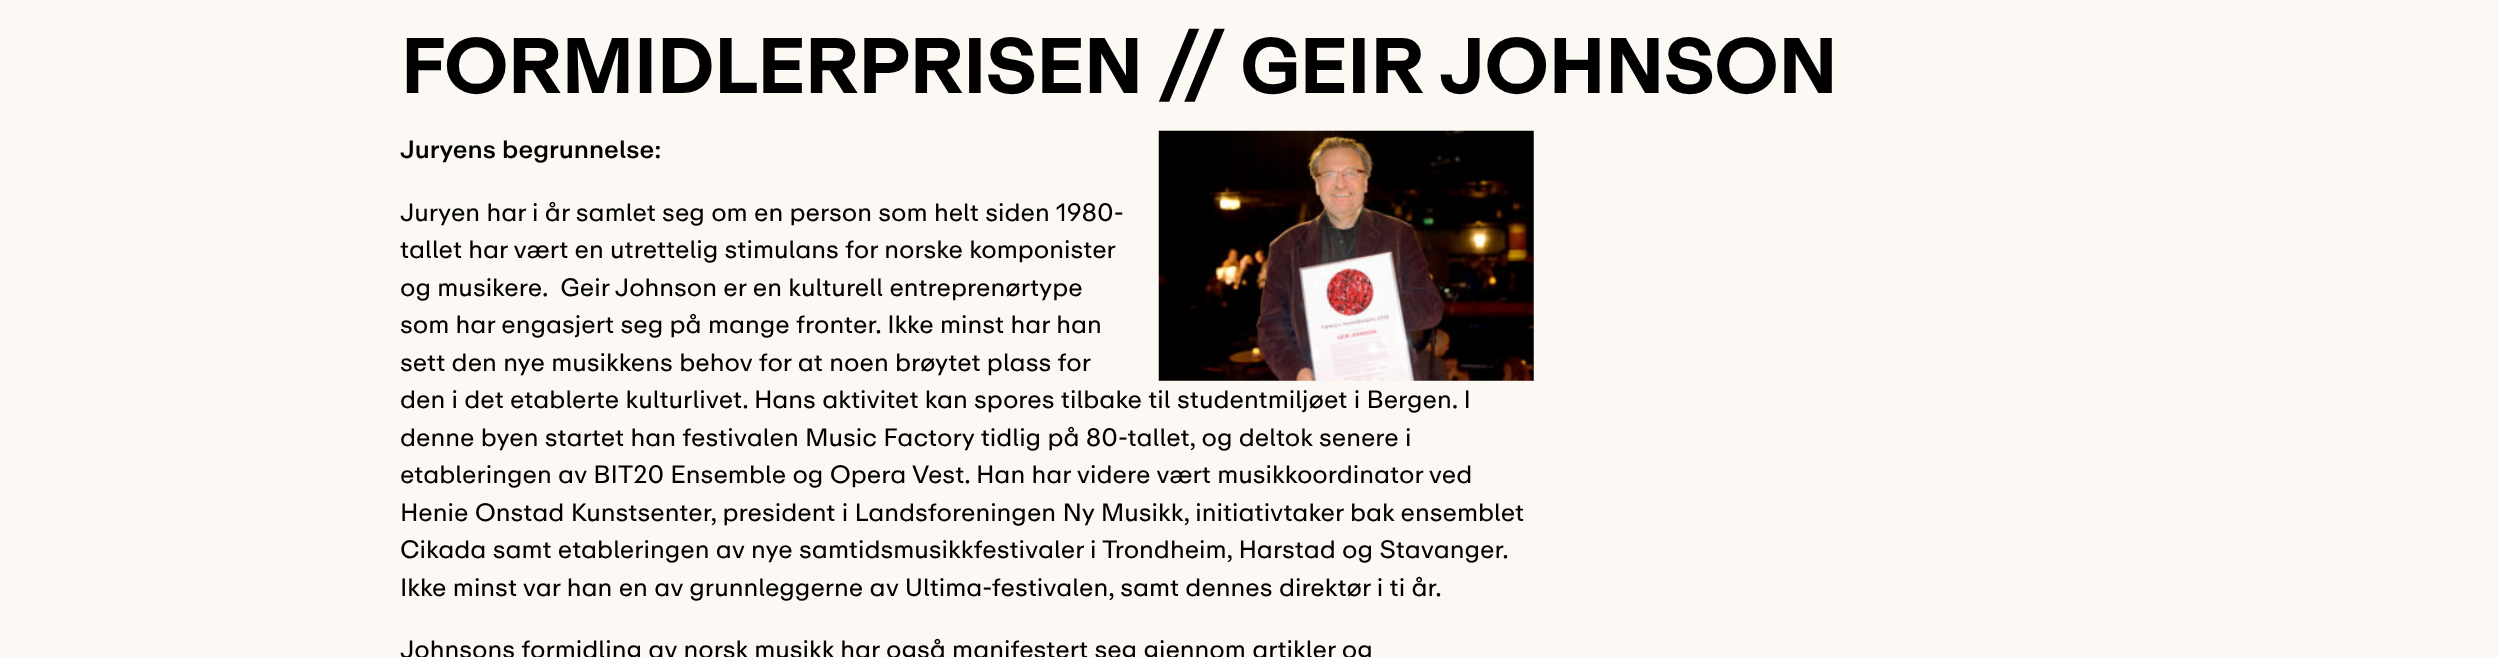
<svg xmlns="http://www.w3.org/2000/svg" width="2499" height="657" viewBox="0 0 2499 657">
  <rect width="100%" height="100%" fill="rgb(252,248,243)"/>
  <text x="400" y="93" font-family="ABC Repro" font-size="75" font-weight="bold" fill="rgb(0,0,0)">FORMIDLERPRISEN // GEIR JOHNSON</text>
  <text x="400" y="158" font-family="ABC Repro" font-size="25" font-weight="500" fill="rgb(0,0,0)">Juryens begrunnelse:</text>
  <image x="1158" y="130" width="376" height="251" href="pic1.png"/>
  <g font-family="ABC Repro" font-size="25" fill="rgb(0,0,0)">
    <text xml:space="preserve"><tspan x="400" y="221">Juryen har i år samlet seg om en person som helt siden 1980-</tspan><tspan x="400" y="258">tallet har vært en utrettelig stimulans for norske komponister</tspan><tspan x="400" y="296">og musikere.  Geir Johnson er en kulturell entreprenørtype</tspan><tspan x="400" y="333">som har engasjert seg på mange fronter. Ikke minst har han</tspan><tspan x="400" y="371">sett den nye musikkens behov for at noen brøytet plass for</tspan><tspan x="400" y="408">den i det etablerte kulturlivet. Hans aktivitet kan spores tilbake til studentmiljøet i Bergen. I</tspan><tspan x="400" y="446">denne byen startet han festivalen Music Factory tidlig på 80-tallet, og deltok senere i</tspan><tspan x="400" y="483">etableringen av BIT20 Ensemble og Opera Vest. Han har videre vært musikkoordinator ved</tspan><tspan x="400" y="521">Henie Onstad Kunstsenter, president i Landsforeningen Ny Musikk, initiativtaker bak ensemblet</tspan><tspan x="400" y="558">Cikada samt etableringen av nye samtidsmusikkfestivaler i Trondheim, Harstad og Stavanger.</tspan><tspan x="400" y="596">Ikke minst var han en av grunnleggerne av Ultima-festivalen, samt dennes direktør i ti år.</tspan></text>
    <text x="400" y="658">Johnsons formidling av norsk musikk har også manifestert seg gjennom artikler og</text>
  </g>
</svg>
